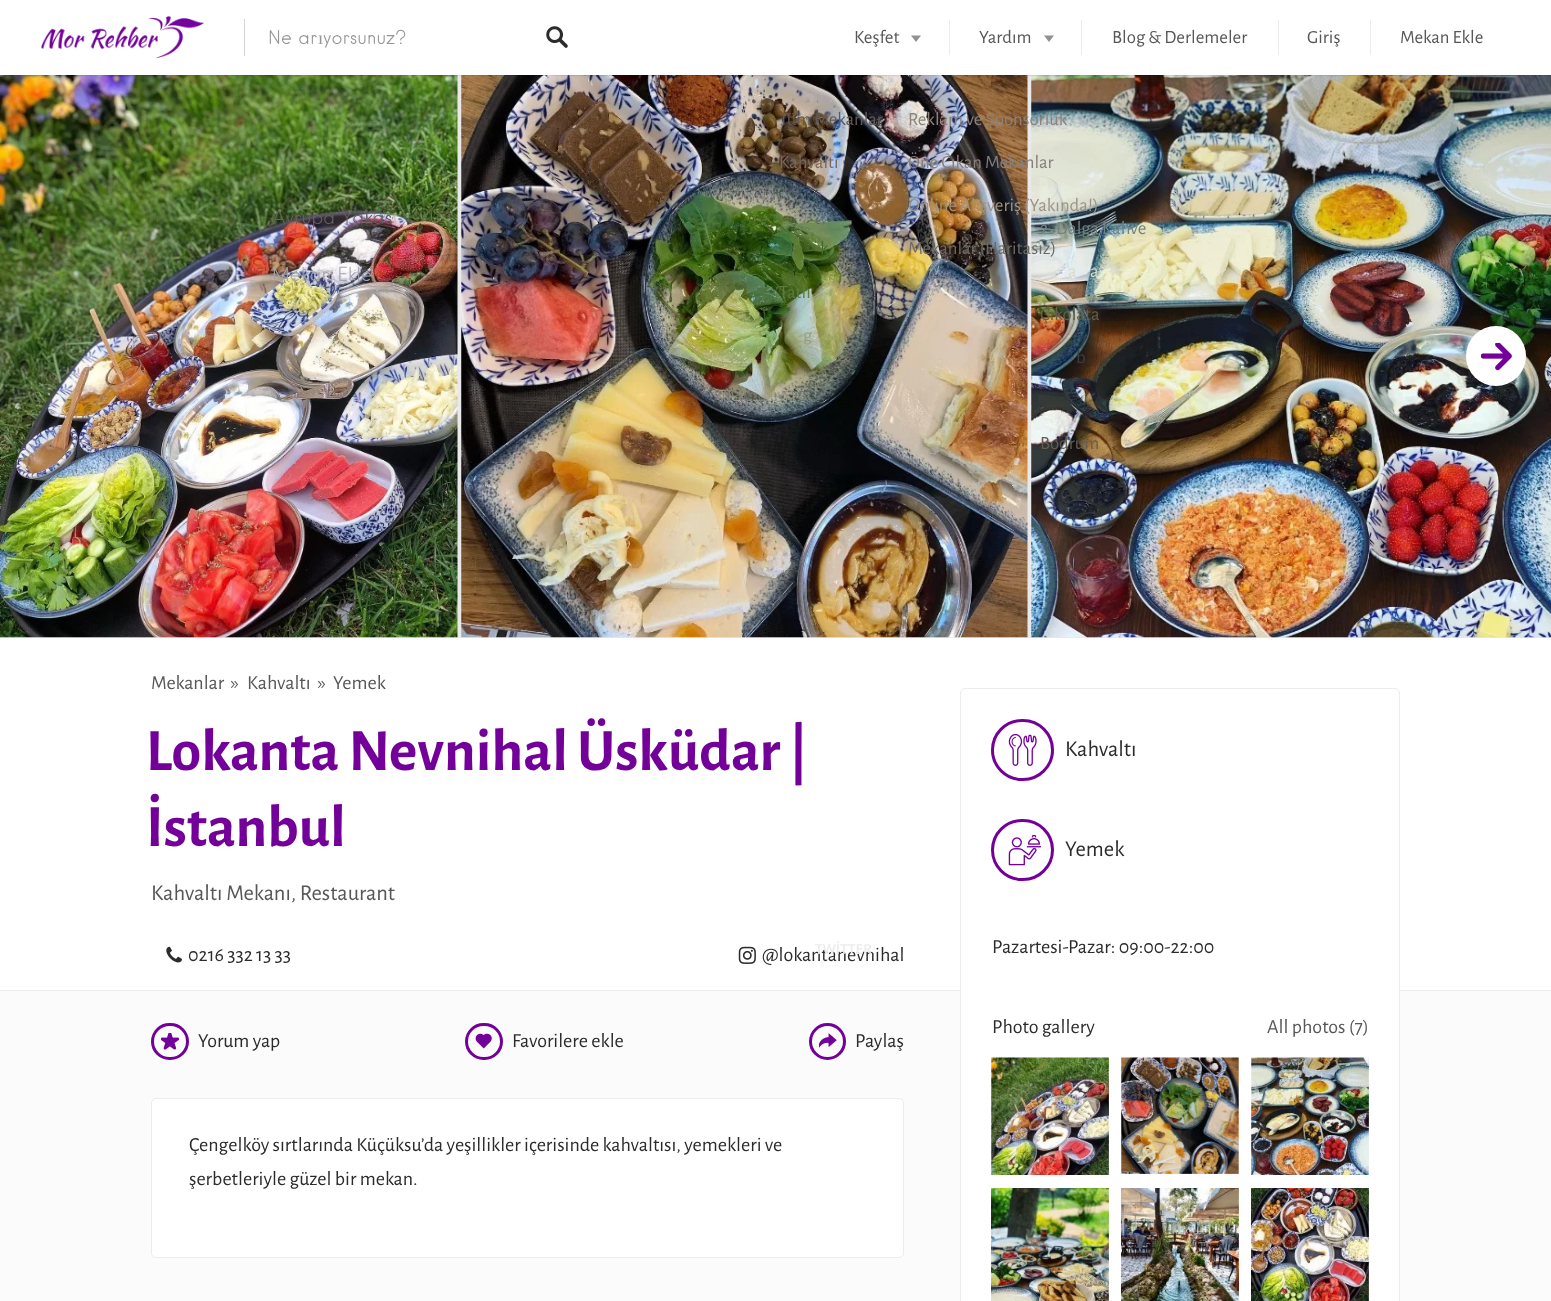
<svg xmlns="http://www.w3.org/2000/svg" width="1551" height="1301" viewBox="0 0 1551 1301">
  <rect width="100%" height="100%" fill="rgb(251,251,251)"/>
  <rect x="0" y="75" width="1551" height="563" fill="rgb(233,233,233)"/>
  <image x="0" y="75" width="458" height="563" href="pic3.png"/>
  <image x="461" y="75" width="567" height="563" href="pic4.png"/>
  <image x="1031" y="75" width="520" height="563" href="pic5.png"/>
  <rect x="0" y="0" width="1551" height="75" fill="rgba(0,0,0,0.25)" filter="blur(1px)"/>
  <rect x="0" y="0" width="1551" height="75" fill="rgb(255,255,255)"/>
  <image x="41" y="16" width="163" height="43" href="pic1.png"/>
  <rect x="244" y="19" width="1" height="37" fill="rgb(213,213,213)"/>
  <text x="268" y="44" font-family="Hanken" font-size="18.5" font-weight="300" fill="rgb(149,149,149)">Ne ar</text>
  <text x="318" y="44" font-family="Liberation Serif" font-size="18.5" fill="rgb(149,149,149)">ı</text>
  <text x="323" y="44" font-family="Hanken" font-size="18.5" font-weight="300" fill="rgb(149,149,149)">yorsunuz?</text>
  <text x="272" y="224" font-family="Hanken" font-size="18.75" font-weight="300" fill="rgb(104,95,98)">Avrupa Yakas</text>
  <text x="392" y="224" font-family="Liberation Serif" font-size="18.75" fill="rgb(211,191,194)">ı</text>
  <text x="272" y="281" font-family="Hanken" font-size="18.75" font-weight="300" fill="rgb(166,163,170)">Mekan Ekle</text>
  <image x="546" y="26" width="22" height="22" href="pic2.png"/>
  <text x="854" y="43" font-family="Alegreya Sans" font-size="18.75" fill="rgb(87,87,87)">Keşfet</text>
  <path d="M911 35.5H921L916 42Z" fill="rgb(145,145,145)"/>
  <text x="779" y="125" font-family="Alegreya Sans" font-size="18.75" fill="rgb(96,89,85)">Tüm Mekanlar</text>
  <text x="779" y="168" font-family="Alegreya Sans" font-size="18.75" fill="rgb(119,105,95)">Kahvaltı</text>
  <text x="820" y="254" font-family="Alegreya Sans" font-size="18.75" fill="rgb(70,107,47)">k</text>
  <text x="1040" y="234" font-family="Alegreya Sans" font-size="18.75" fill="rgb(113,131,130)">2. Dalga Kahve</text>
  <g font-family="Alegreya Sans" font-size="18.75" fill="rgb(215,220,205)">
    <text x="1068" y="277">a</text>
    <text x="1090" y="277">a</text>
  </g>
  <text x="779" y="298" font-family="Alegreya Sans" font-size="18.75" fill="rgb(93,123,67)">Tatlı</text>
  <text x="1040" y="320" font-family="Alegreya Sans" font-size="18.75" fill="rgb(100,95,72)">Çikolata</text>
  <text x="803" y="341" font-family="Alegreya Sans" font-size="18.75" fill="rgb(151,161,120)">g</text>
  <text x="1076" y="363" font-family="Alegreya Sans" font-size="18.75" fill="rgb(61,62,65)">b</text>
  <text x="1040" y="449" font-family="Alegreya Sans" font-size="18.75" fill="rgb(102,93,81)">Bodrum</text>
  <rect x="949" y="20" width="1" height="35" fill="rgb(236,236,236)"/>
  <text x="979" y="43" font-family="Alegreya Sans" font-size="18.75" fill="rgb(87,87,87)">Yardım</text>
  <path d="M1044 35.5H1054L1049 42Z" fill="rgb(145,145,145)"/>
  <text x="908" y="125" font-family="Alegreya Sans" font-size="18.75" fill="rgb(140,130,121)">Reklam ve Sponsorluk</text>
  <text x="908" y="168" font-family="Alegreya Sans" font-size="18.75" fill="rgb(134,126,122)">Öne Çıkan Mekanlar</text>
  <text x="908" y="211" font-family="Alegreya Sans" font-size="18.75" fill="rgb(158,147,130)">Online Alışveriş (Yakında!)</text>
  <text x="908" y="254" font-family="Alegreya Sans" font-size="18.75" fill="rgb(109,106,99)">Mekanlar (Haritasız)</text>
  <rect x="1081" y="20" width="1" height="35" fill="rgb(236,236,236)"/>
  <text x="1112" y="43" font-family="Alegreya Sans" font-size="18.75" fill="rgb(87,87,87)">Blog &amp; Derlemeler</text>
  <rect x="1278" y="20" width="1" height="35" fill="rgb(236,236,236)"/>
  <text x="1307" y="43" font-family="Alegreya Sans" font-size="18.75" fill="rgb(87,87,87)">Giriş</text>
  <rect x="1370" y="20" width="1" height="35" fill="rgb(236,236,236)"/>
  <text x="1400" y="43" font-family="Alegreya Sans" font-size="18.75" fill="rgb(87,87,87)">Mekan Ekle</text>
  <circle cx="1496" cy="356" r="30" fill="rgb(255,255,255)"/>
  <image x="1481" y="343" width="31" height="28" href="pic6.png"/>
  <rect x="0" y="638" width="1551" height="352" fill="rgb(255,255,255)"/>
  <rect x="0" y="990" width="1551" height="1" fill="rgb(236,236,236)"/>
  <g font-family="Alegreya Sans" font-size="20" fill="rgb(87,87,87)">
    <text x="151" y="689">Mekanlar</text>
    <text x="231" y="689">»</text>
    <text x="247" y="689">Kahvaltı</text>
    <text x="318" y="689">»</text>
    <text x="333" y="689">Yemek</text>
  </g>
  <g font-family="Alegreya Sans" font-size="60" font-weight="bold" fill="rgb(115,0,153)">
    <text>
      <tspan x="146" y="770">Lokanta Nevnihal Üsküdar |</tspan>
      <tspan x="146" y="846">İstanbul</tspan>
    </text>
  </g>
  <text x="151" y="900" font-family="Alegreya Sans" font-size="22.5" fill="rgb(87,87,87)">Kahvaltı Mekanı, Restaurant</text>
  <image x="166" y="946" width="16" height="17" href="pic7.png"/>
  <text x="188" y="961" font-family="Alegreya Sans" font-size="20" fill="rgb(43,43,43)">0216 332 13 33</text>
  <image x="738" y="946" width="18" height="18" href="pic8.png"/>
  <text x="762" y="961" font-family="Alegreya Sans" font-size="20" fill="rgb(43,43,43)">@lokantanevnihal</text>
  <rect x="152.5" y="1024.5" width="35" height="34" rx="17" fill="none" stroke="rgb(115,0,153)" stroke-width="3"/>
  <image x="161" y="1033" width="19" height="17" href="pic9.png"/>
  <text x="198" y="1047" font-family="Alegreya Sans" font-size="20" fill="rgb(43,43,43)">Yorum yap</text>
  <rect x="466.5" y="1024.5" width="35" height="34" rx="17" fill="none" stroke="rgb(115,0,153)" stroke-width="3"/>
  <image x="475" y="1033" width="17" height="16" href="pic10.png"/>
  <text x="512" y="1047" font-family="Alegreya Sans" font-size="20" fill="rgb(43,43,43)">Favorilere ekle</text>
  <text x="815" y="954" font-family="Open Sans" font-size="13.75" font-weight="600" fill="rgb(236,236,236)">TWİTTER</text>
  <circle cx="827.5" cy="1041.5" r="17" fill="none" stroke="rgb(115,0,153)" stroke-width="3"/>
  <image x="819" y="1033" width="18" height="15" href="pic11.png"/>
  <text x="855" y="1047" font-family="Alegreya Sans" font-size="20" fill="rgb(43,43,43)">Paylaş</text>
  <rect x="151.5" y="1098.5" width="752" height="159" rx="4.5" fill="rgb(255,255,255)" stroke="rgb(236,236,236)"/>
  <g font-family="Alegreya Sans" font-size="20" fill="rgb(43,43,43)">
    <text>
      <tspan x="189" y="1151">Çengelköy sırtlarında Küçüksu’da yeşillikler içerisinde kahvaltısı, yemekleri ve</tspan>
      <tspan x="189" y="1185">şerbetleriyle güzel bir mekan.</tspan>
    </text>
  </g>
  <rect x="960.5" y="688.5" width="439" height="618" rx="4.5" fill="rgb(255,255,255)" stroke="rgb(236,236,236)"/>
  <rect x="992.5" y="720.5" width="60" height="59" rx="29.5" fill="none" stroke="rgb(115,0,153)" stroke-width="3"/>
  <image x="1008" y="734" width="29" height="32" href="pic12.png"/>
  <text x="1065" y="756" font-family="Alegreya Sans" font-size="22.5" fill="rgb(43,43,43)">Kahvaltı</text>
  <rect x="992.5" y="820.5" width="60" height="59" rx="29.5" fill="none" stroke="rgb(115,0,153)" stroke-width="3"/>
  <image x="1008" y="835" width="33" height="31" href="pic13.png"/>
  <text x="1065" y="856" font-family="Alegreya Sans" font-size="22.5" fill="rgb(43,43,43)">Yemek</text>
  <g font-family="Alegreya Sans" font-size="20" fill="rgb(43,43,43)">
    <text x="992" y="953">Pazartesi-Pazar: 09:00-22:00</text>
    <text x="992" y="1033">Photo gallery</text>
  </g>
  <text x="1267" y="1033" font-family="Alegreya Sans" font-size="20" fill="rgb(87,87,87)">All photos (7)</text>
  <image x="991" y="1057" width="118" height="118" href="pic14.png"/>
  <image x="1121" y="1057" width="118" height="117" href="pic15.png"/>
  <image x="1251" y="1057" width="118" height="118" href="pic16.png"/>
  <image x="991" y="1188" width="118" height="113" href="pic17.png"/>
  <image x="1121" y="1188" width="118" height="113" href="pic18.png"/>
  <image x="1251" y="1188" width="118" height="113" href="pic19.png"/>
</svg>
